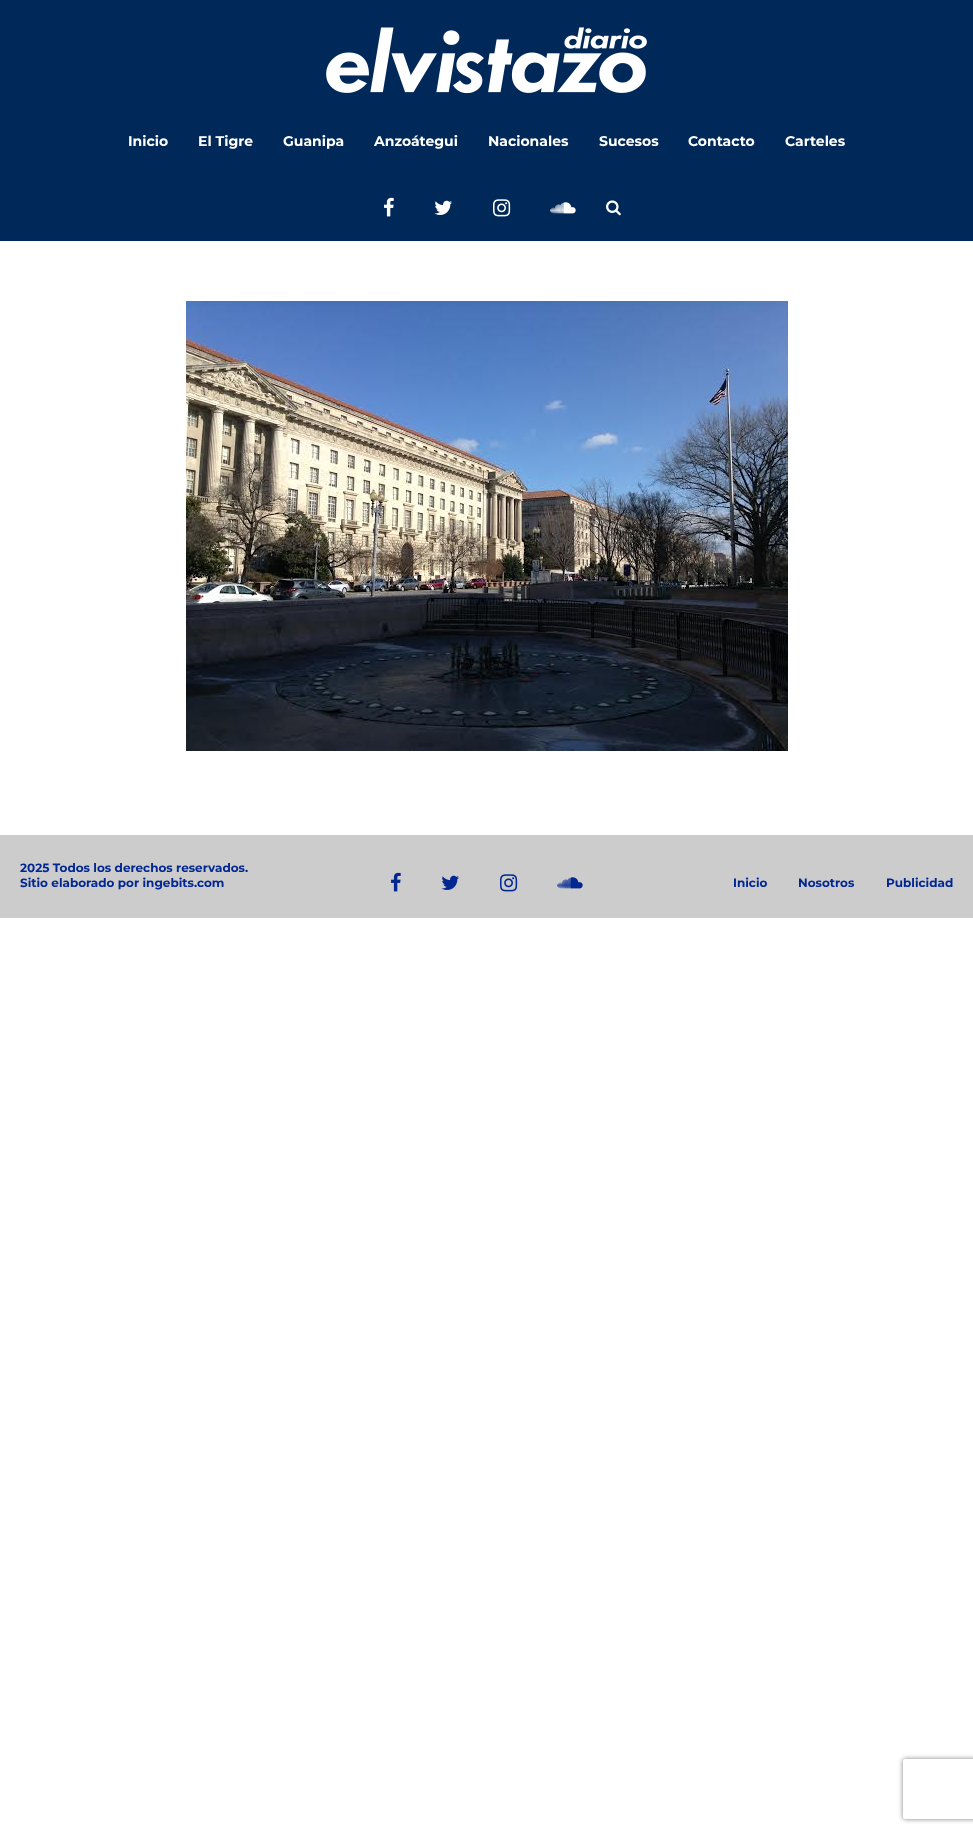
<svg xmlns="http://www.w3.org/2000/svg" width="973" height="1833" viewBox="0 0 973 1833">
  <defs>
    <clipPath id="clip1"><path d="M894 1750H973V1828H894ZM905 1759H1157C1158 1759 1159 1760 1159 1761V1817C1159 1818 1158 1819 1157 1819H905C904 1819 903 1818 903 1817V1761C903 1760 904 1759 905 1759Z" clip-rule="evenodd"/></clipPath>
  </defs>
  <rect width="100%" height="100%" fill="rgb(255,255,255)"/>
  <rect x="0" y="0" width="973" height="241" fill="rgb(0,40,88)"/>
  <image x="326" y="27" width="321" height="67" href="pic1.png"/>
  <g font-family="Montserrat" font-size="14" font-weight="bold" fill="rgb(255,255,255)">
    <text x="128" y="146">Inicio</text>
    <text x="198" y="146">El Tigre</text>
    <text x="283" y="146">Guanipa</text>
    <text x="374" y="146">Anzoátegui</text>
    <text x="488" y="146">Nacionales</text>
    <text x="599" y="146">Sucesos</text>
    <text x="688" y="146">Contacto</text>
    <text x="785" y="146">Carteles</text>
  </g>
  <image x="384" y="197" width="10" height="20" href="pic2.png"/>
  <image x="434" y="200" width="18" height="15" href="pic3.png"/>
  <image x="493" y="199" width="18" height="18" href="pic4.png"/>
  <image x="550" y="202" width="26" height="12" href="pic5.png"/>
  <image x="606" y="200" width="15" height="16" href="pic6.png"/>
  <image x="186" y="301" width="602" height="450" href="pic7.png"/>
  <rect x="0" y="835" width="973" height="83" fill="rgb(204,204,204)"/>
  <g font-family="Montserrat" font-size="12" font-weight="bold" fill="rgb(2,39,147)">
    <text>
      <tspan x="20" y="872">2025 Todos los derechos reservados.</tspan>
      <tspan x="20" y="887">Sitio elaborado por ingebits.com</tspan>
    </text>
  </g>
  <image x="391" y="872" width="10" height="20" href="pic8.png"/>
  <image x="441" y="875" width="18" height="15" href="pic9.png"/>
  <image x="500" y="874" width="18" height="18" href="pic10.png"/>
  <image x="557" y="877" width="26" height="12" href="pic11.png"/>
  <g font-family="Montserrat" font-size="12" font-weight="bold" fill="rgb(2,39,147)">
    <text x="733" y="887">Inicio</text>
    <text x="798" y="887">Nosotros</text>
    <text x="886" y="887">Publicidad</text>
  </g>
  <g clip-path="url(#clip1)">
    <rect x="903" y="1759" width="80" height="60" rx="2" fill="rgb(128,128,128)" filter="blur(2.5px)"/>
  </g>
</svg>
